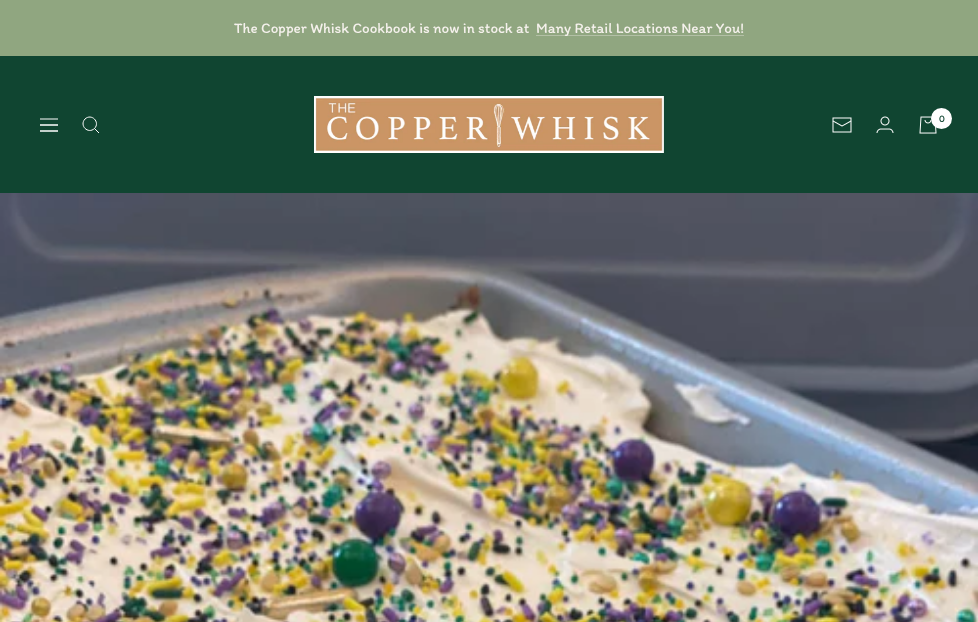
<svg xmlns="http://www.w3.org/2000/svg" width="978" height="622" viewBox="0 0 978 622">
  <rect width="100%" height="100%" fill="rgb(255,255,255)"/>
  <rect x="0" y="0" width="978" height="56" fill="rgb(144,166,128)"/>
  <text x="234" y="33" font-family="Itim" font-size="15" fill="rgb(245,241,236)">The Copper Whisk Cookbook is now in stock at</text>
  <rect x="536" y="35" width="208" height="1" fill="rgb(179,192,166)"/>
  <text x="536" y="33" font-family="Itim" font-size="15" fill="rgb(245,241,236)">Many Retail Locations Near You!</text>
  <rect x="0" y="56" width="978" height="137" fill="rgb(16,69,49)"/>
  <path d="M40 119H58M40 131H58ZM40 125H58ZM94.5 128.5C100.5 122 91.5 113 85 119C79 125.5 88 134.5 94.5 128.5ZM94.5 128.5L99 133" fill="none" stroke="rgb(255,255,255)"/>
  <image x="314" y="96" width="350" height="57" href="pic1.png"/>
  <image x="832" y="117" width="20" height="16" href="pic2.png"/>
  <image x="876" y="116" width="18" height="17" href="pic3.png"/>
  <image x="919" y="116" width="18" height="18" href="pic4.png"/>
  <circle cx="941.5" cy="118.5" r="10.5" fill="rgb(255,255,255)"/>
  <text x="939" y="122" font-family="Figtree" font-size="9" font-weight="600" fill="rgb(16,69,49)">0</text>
  <image x="0" y="193" width="978" height="429" href="pic5.png"/>
</svg>
